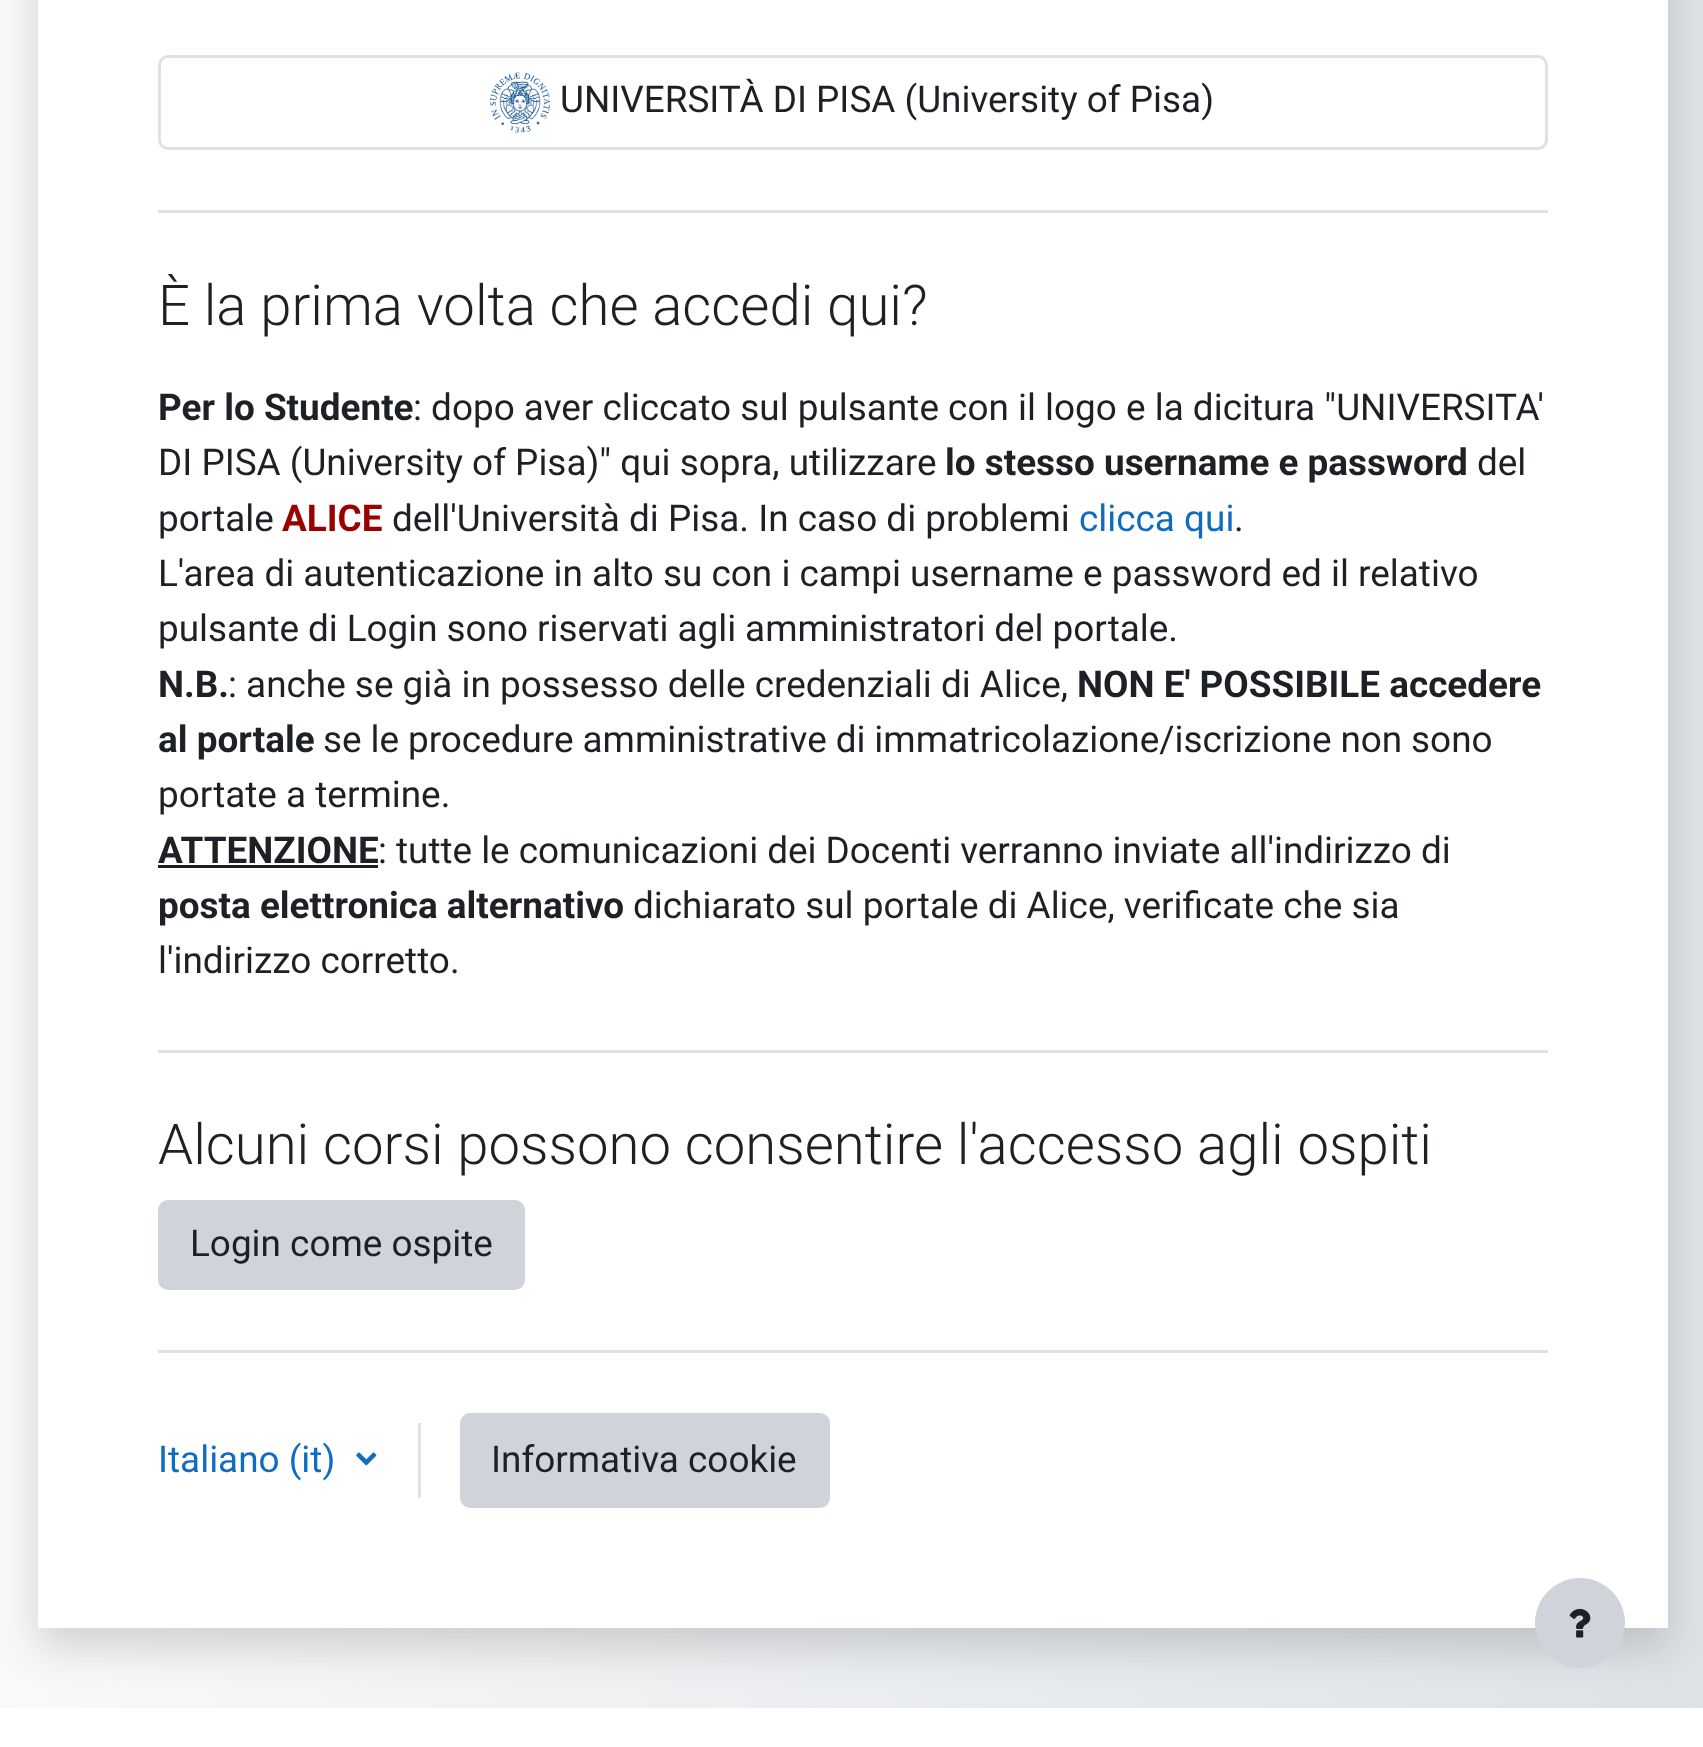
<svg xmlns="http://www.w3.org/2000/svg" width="1703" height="1747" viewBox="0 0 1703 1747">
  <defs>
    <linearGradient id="g1" gradientUnits="userSpaceOnUse" x1="0" y1="304" x2="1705" y2="304"><stop offset="0" stop-color="rgb(248,249,250)"/><stop offset="1" stop-color="rgb(222,226,230)"/></linearGradient>
  </defs>
  <rect width="100%" height="100%" fill="rgb(255,255,255)"/>
  <rect x="0" y="0" width="1703" height="1708" fill="url(#g1)"/>
  <rect x="38" y="-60" width="1630" height="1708" fill="rgba(0,0,0,0.15)" filter="blur(20px)"/>
  <rect x="38" y="0" width="1630" height="1628" fill="rgb(255,255,255)"/>
  <rect x="159.5" y="56.5" width="1387" height="92" rx="8.5" fill="none" stroke="rgb(222,226,230)" stroke-width="3"/>
  <image x="490" y="72" width="60" height="61" href="pic1.png"/>
  <text x="560" y="112" font-family="Roboto" font-size="36.9" fill="rgb(29,33,37)">UNIVERSITÀ DI PISA (University of Pisa)</text>
  <rect x="158" y="210" width="1390" height="3" fill="rgb(222,226,230)"/>
  <text x="158" y="325" font-family="Roboto" font-size="56.25" font-weight="300" fill="rgb(29,33,37)">È la prima volta che accedi qui?</text>
  <text x="158" y="420" font-family="Roboto" font-size="36.9" font-weight="bold" fill="rgb(29,33,37)">Per lo Studente</text>
  <g font-family="Roboto" font-size="36.9" fill="rgb(29,33,37)">
    <text x="413" y="420">: dopo aver cliccato sul pulsante con il logo e la dicitura "UNIVERSITA'</text>
    <text x="158" y="475">DI PISA (University of Pisa)" qui sopra, utilizzare</text>
  </g>
  <text x="945" y="475" font-family="Roboto" font-size="36.9" font-weight="bold" fill="rgb(29,33,37)">lo stesso username e password</text>
  <g font-family="Roboto" font-size="36.9" fill="rgb(29,33,37)">
    <text x="1477" y="475">del</text>
    <text x="158" y="531">portale</text>
  </g>
  <text x="282" y="531" font-family="Roboto" font-size="36.9" font-weight="bold" fill="rgb(153,0,0)">ALICE</text>
  <text x="392" y="531" font-family="Roboto" font-size="36.9" fill="rgb(29,33,37)">dell'Università di Pisa. In caso di problemi</text>
  <text x="1079" y="531" font-family="Roboto" font-size="36.9" fill="rgb(15,108,191)">clicca qui</text>
  <g font-family="Roboto" font-size="36.9" fill="rgb(29,33,37)">
    <text x="1234" y="531">.</text>
    <text>
      <tspan x="158" y="586">L'area di autenticazione in alto su con i campi username e password ed il relativo</tspan>
      <tspan x="158" y="641" word-spacing="-0.25">pulsante di Login sono riservati agli amministratori del portale.</tspan>
    </text>
  </g>
  <text x="158" y="697" font-family="Roboto" font-size="36.9" font-weight="bold" fill="rgb(29,33,37)">N.B.</text>
  <text x="228" y="697" font-family="Roboto" font-size="36.9" fill="rgb(29,33,37)">: anche se già in possesso delle credenziali di Alice,</text>
  <g font-family="Roboto" font-size="36.9" font-weight="bold" fill="rgb(29,33,37)">
    <text x="1077" y="697">NON E' POSSIBILE accedere</text>
    <text x="158" y="752">al portale</text>
  </g>
  <g font-family="Roboto" font-size="36.9" fill="rgb(29,33,37)">
    <text x="323" y="752" word-spacing="-0.25">se le procedure amministrative di immatricolazione/iscrizione non sono</text>
    <text x="158" y="807">portate a termine.</text>
  </g>
  <text x="158" y="863" font-family="Roboto" font-size="36.9" font-weight="bold" fill="rgb(29,33,37)">ATTENZIONE</text>
  <rect x="158" y="865" width="220" height="3" fill="rgb(29,33,37)"/>
  <text x="378" y="863" word-spacing="-0.1" font-family="Roboto" font-size="36.9" fill="rgb(29,33,37)">: tutte le comunicazioni dei Docenti verranno inviate all'indirizzo di</text>
  <text x="158" y="918" font-family="Roboto" font-size="36.9" font-weight="bold" fill="rgb(29,33,37)">posta elettronica alternativo</text>
  <g font-family="Roboto" font-size="36.9" fill="rgb(29,33,37)">
    <text x="633" y="918">dichiarato sul portale di Alice, verificate che sia</text>
    <text x="158" y="973">l'indirizzo corretto.</text>
  </g>
  <rect x="158" y="1050" width="1390" height="3" fill="rgb(222,226,230)"/>
  <text x="158" y="1164" font-family="Roboto" font-size="56.25" font-weight="300" fill="rgb(29,33,37)">Alcuni corsi possono consentire l'accesso agli ospiti</text>
  <rect x="159.5" y="1201.5" width="364" height="87" rx="8.5" fill="rgb(206,212,218)" stroke="rgb(206,212,218)" stroke-width="3"/>
  <text x="190" y="1256" font-family="Roboto" font-size="36.9" fill="rgb(29,33,37)">Login come ospite</text>
  <rect x="158" y="1350" width="1390" height="3" fill="rgb(222,226,230)"/>
  <text x="158" y="1472" font-family="Roboto" font-size="36.9" fill="rgb(15,108,191)">Italiano (it)</text>
  <image x="356" y="1452" width="21" height="14" href="pic2.png"/>
  <rect x="418" y="1423" width="3" height="75" fill="rgb(222,226,230)"/>
  <rect x="461.5" y="1414.5" width="367" height="92" rx="8.5" fill="rgb(206,212,218)" stroke="rgb(206,212,218)" stroke-width="3"/>
  <text x="491" y="1472" font-family="Roboto" font-size="36.9" fill="rgb(29,33,37)">Informativa cookie</text>
  <circle cx="1580" cy="1623" r="45" fill="rgb(206,212,218)"/>
  <image x="1569" y="1608" width="22" height="30" href="pic3.png"/>
</svg>
